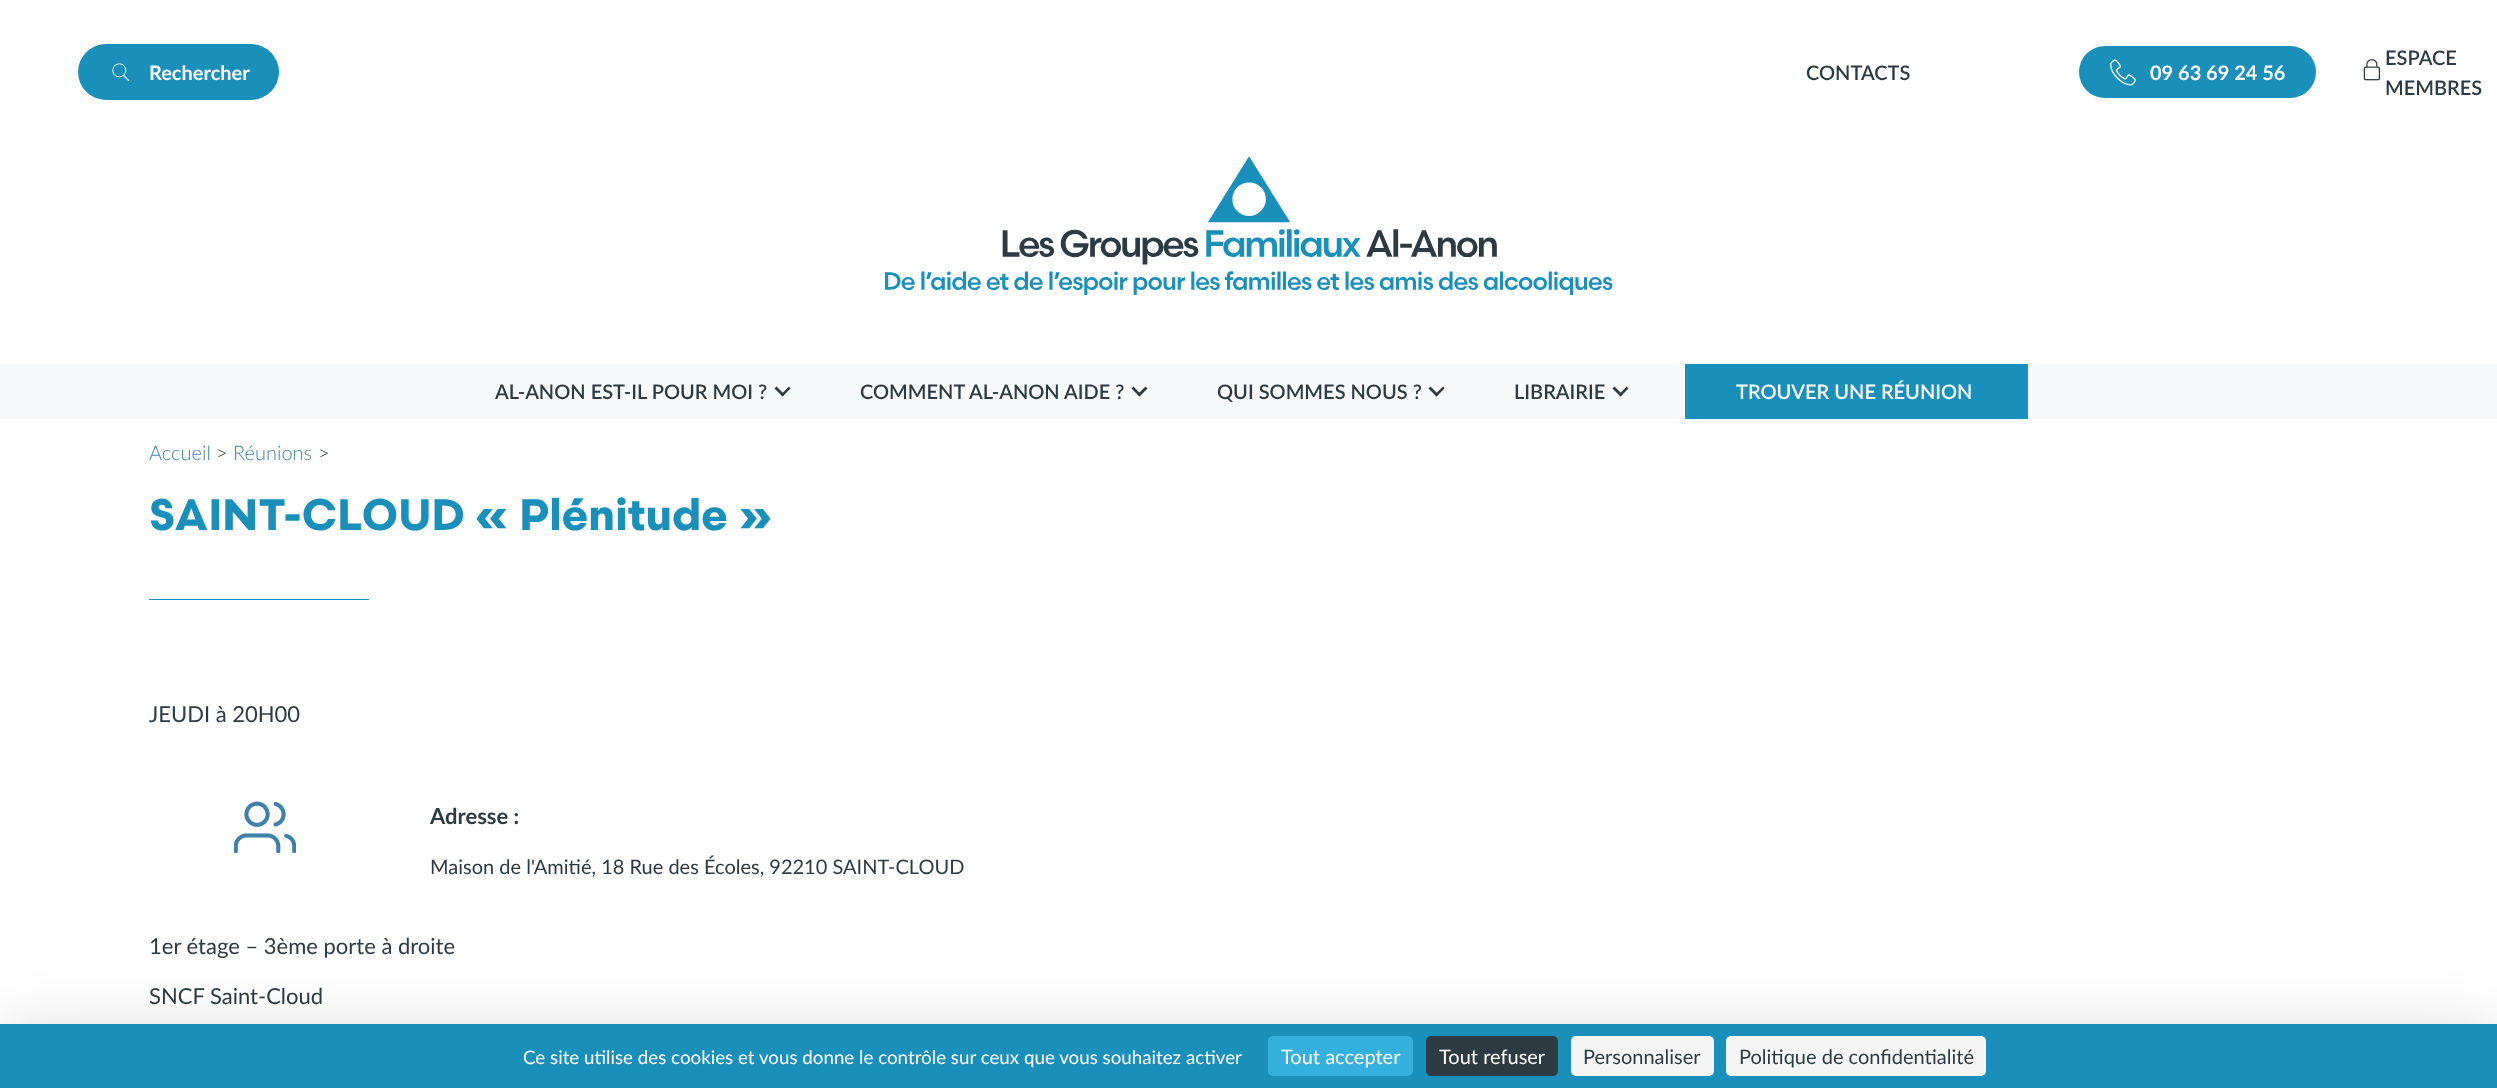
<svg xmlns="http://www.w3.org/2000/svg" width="2497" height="1088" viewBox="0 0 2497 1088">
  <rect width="100%" height="100%" fill="rgb(255,255,255)"/>
  <rect x="78" y="44" width="201" height="56" rx="28" fill="rgb(26,143,186)"/>
  <image x="112" y="63" width="18" height="18" href="pic1.png"/>
  <text x="149" y="80" font-family="Lato" font-size="20" font-weight="bold" fill="rgb(255,255,255)">Rechercher</text>
  <text x="1806" y="80" font-family="Lato" font-size="20" font-weight="600" fill="rgb(46,58,65)">CONTACTS</text>
  <rect x="2079" y="46" width="237" height="52" rx="26" fill="rgb(26,143,186)"/>
  <image x="2110" y="59" width="26" height="27" href="pic2.png"/>
  <text x="2150" y="80" font-family="Lato" font-size="20" font-weight="bold" fill="rgb(255,255,255)">09 63 69 24 56</text>
  <image x="2363" y="59" width="17" height="22" href="pic3.png"/>
  <g font-family="Lato" font-size="20" font-weight="600" fill="rgb(46,58,65)">
    <text>
      <tspan x="2385" y="65">ESPACE</tspan>
      <tspan x="2385" y="95">MEMBRES</tspan>
    </text>
  </g>
  <image x="885" y="156" width="728" height="139" href="pic4.png"/>
  <rect x="0" y="364" width="2497" height="55" fill="rgb(248,249,250)"/>
  <text x="495" y="399" font-family="Lato" font-size="20" font-weight="600" fill="rgb(46,58,65)">AL-ANON EST-IL POUR MOI ?</text>
  <path d="M789 386.5L790.5 388.5L782.5 396.5L781 394.5Z" fill="rgb(46,58,65)"/>
  <path d="M776.5 386.5L784.5 394.5L782.5 396.5L774.5 388.5Z" fill="rgb(46,58,65)"/>
  <text x="860" y="399" font-family="Lato" font-size="20" font-weight="600" fill="rgb(46,58,65)">COMMENT AL-ANON AIDE ?</text>
  <path d="M1145.5 386.5L1147.5 388.5L1139.5 396.5L1137.5 394.5Z" fill="rgb(46,58,65)"/>
  <path d="M1133.5 386.5L1141 394.5L1139.5 396.5L1131.5 388.5Z" fill="rgb(46,58,65)"/>
  <text x="1217" y="399" font-family="Lato" font-size="20" font-weight="600" fill="rgb(46,58,65)">QUI SOMMES NOUS ?</text>
  <path d="M1443 386.5L1444.5 388.5L1436.5 396.5L1435 394.5Z" fill="rgb(46,58,65)"/>
  <path d="M1430.5 386.5L1438.5 394.5L1436.5 396.5L1428.5 388.5Z" fill="rgb(46,58,65)"/>
  <text x="1514" y="399" font-family="Lato" font-size="20" font-weight="600" fill="rgb(46,58,65)">LIBRAIRIE</text>
  <path d="M1626.5 386.5L1628.5 388.5L1620.5 396.5L1619 394.5Z" fill="rgb(46,58,65)"/>
  <path d="M1614.5 386.5L1622.5 394.5L1620.5 396.5L1612.5 388.5Z" fill="rgb(46,58,65)"/>
  <rect x="1685" y="364" width="343" height="55" fill="rgb(26,143,186)"/>
  <text x="1736" y="399" font-family="Lato" font-size="20" font-weight="600" fill="rgb(255,255,255)">TROUVER UNE RÉUNION</text>
  <text x="149" y="460" font-family="Lato" font-size="20" font-weight="300" fill="rgb(67,128,169)">Accueil</text>
  <text x="216" y="460" font-family="Lato" font-size="20" font-weight="300" fill="rgb(46,58,65)">&gt;</text>
  <text x="233" y="460" font-family="Lato" font-size="20" font-weight="300" fill="rgb(67,128,169)">Réunions</text>
  <text x="318" y="460" font-family="Lato" font-size="20" font-weight="300" fill="rgb(46,58,65)">&gt;</text>
  <text x="149" y="530" font-family="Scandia" font-size="44" font-weight="bold" fill="rgb(26,143,186)">SAINT-CLOUD « Plénitude »</text>
  <rect x="149" y="599" width="220" height="1" fill="rgb(26,143,186)"/>
  <text x="149" y="722" font-family="Lato" font-size="22" fill="rgb(46,58,65)">JEUDI à 20H00</text>
  <image x="234" y="801" width="62" height="52" href="pic5.png"/>
  <text x="430" y="824" font-family="Lato" font-size="22" font-weight="bold" fill="rgb(46,58,65)">Adresse :</text>
  <text x="430" y="874" font-family="Lato" font-size="20" fill="rgb(46,58,65)">Maison de l'Amitié, 18 Rue des Écoles, 92210 SAINT-CLOUD</text>
  <g font-family="Lato" font-size="22" fill="rgb(46,58,65)">
    <text x="149" y="954">1er étage – 3ème porte à droite</text>
    <text x="149" y="1004">SNCF Saint-Cloud</text>
  </g>
  <rect x="0" y="1049" width="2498" height="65" fill="rgba(0,0,0,0.25)" filter="blur(37.5px)"/>
  <rect x="0" y="1024" width="2497" height="64" fill="rgb(26,143,186)"/>
  <text x="523" y="1064" font-family="Lato" font-size="18.75" fill="rgb(255,255,255)">Ce site utilise des cookies et vous donne le contrôle sur ceux que vous souhaitez activer</text>
  <rect x="1268" y="1036" width="145" height="40" rx="5" fill="rgb(53,175,219)"/>
  <text x="1281" y="1064" font-family="Lato" font-size="20" fill="rgb(255,255,255)">Tout accepter</text>
  <rect x="1426" y="1036" width="132" height="40" rx="5" fill="rgb(46,58,65)"/>
  <text x="1439" y="1064" font-family="Lato" font-size="20" fill="rgb(255,255,255)">Tout refuser</text>
  <rect x="1571" y="1036" width="143" height="40" rx="5" fill="rgb(245,245,245)"/>
  <text x="1583" y="1064" font-family="Lato" font-size="20" fill="rgb(46,58,65)">Personnaliser</text>
  <rect x="1726" y="1036" width="260" height="40" rx="5" fill="rgb(245,245,245)"/>
  <text x="1739" y="1064" font-family="Lato" font-size="20" fill="rgb(46,58,65)">Politique de confidentialité</text>
</svg>
